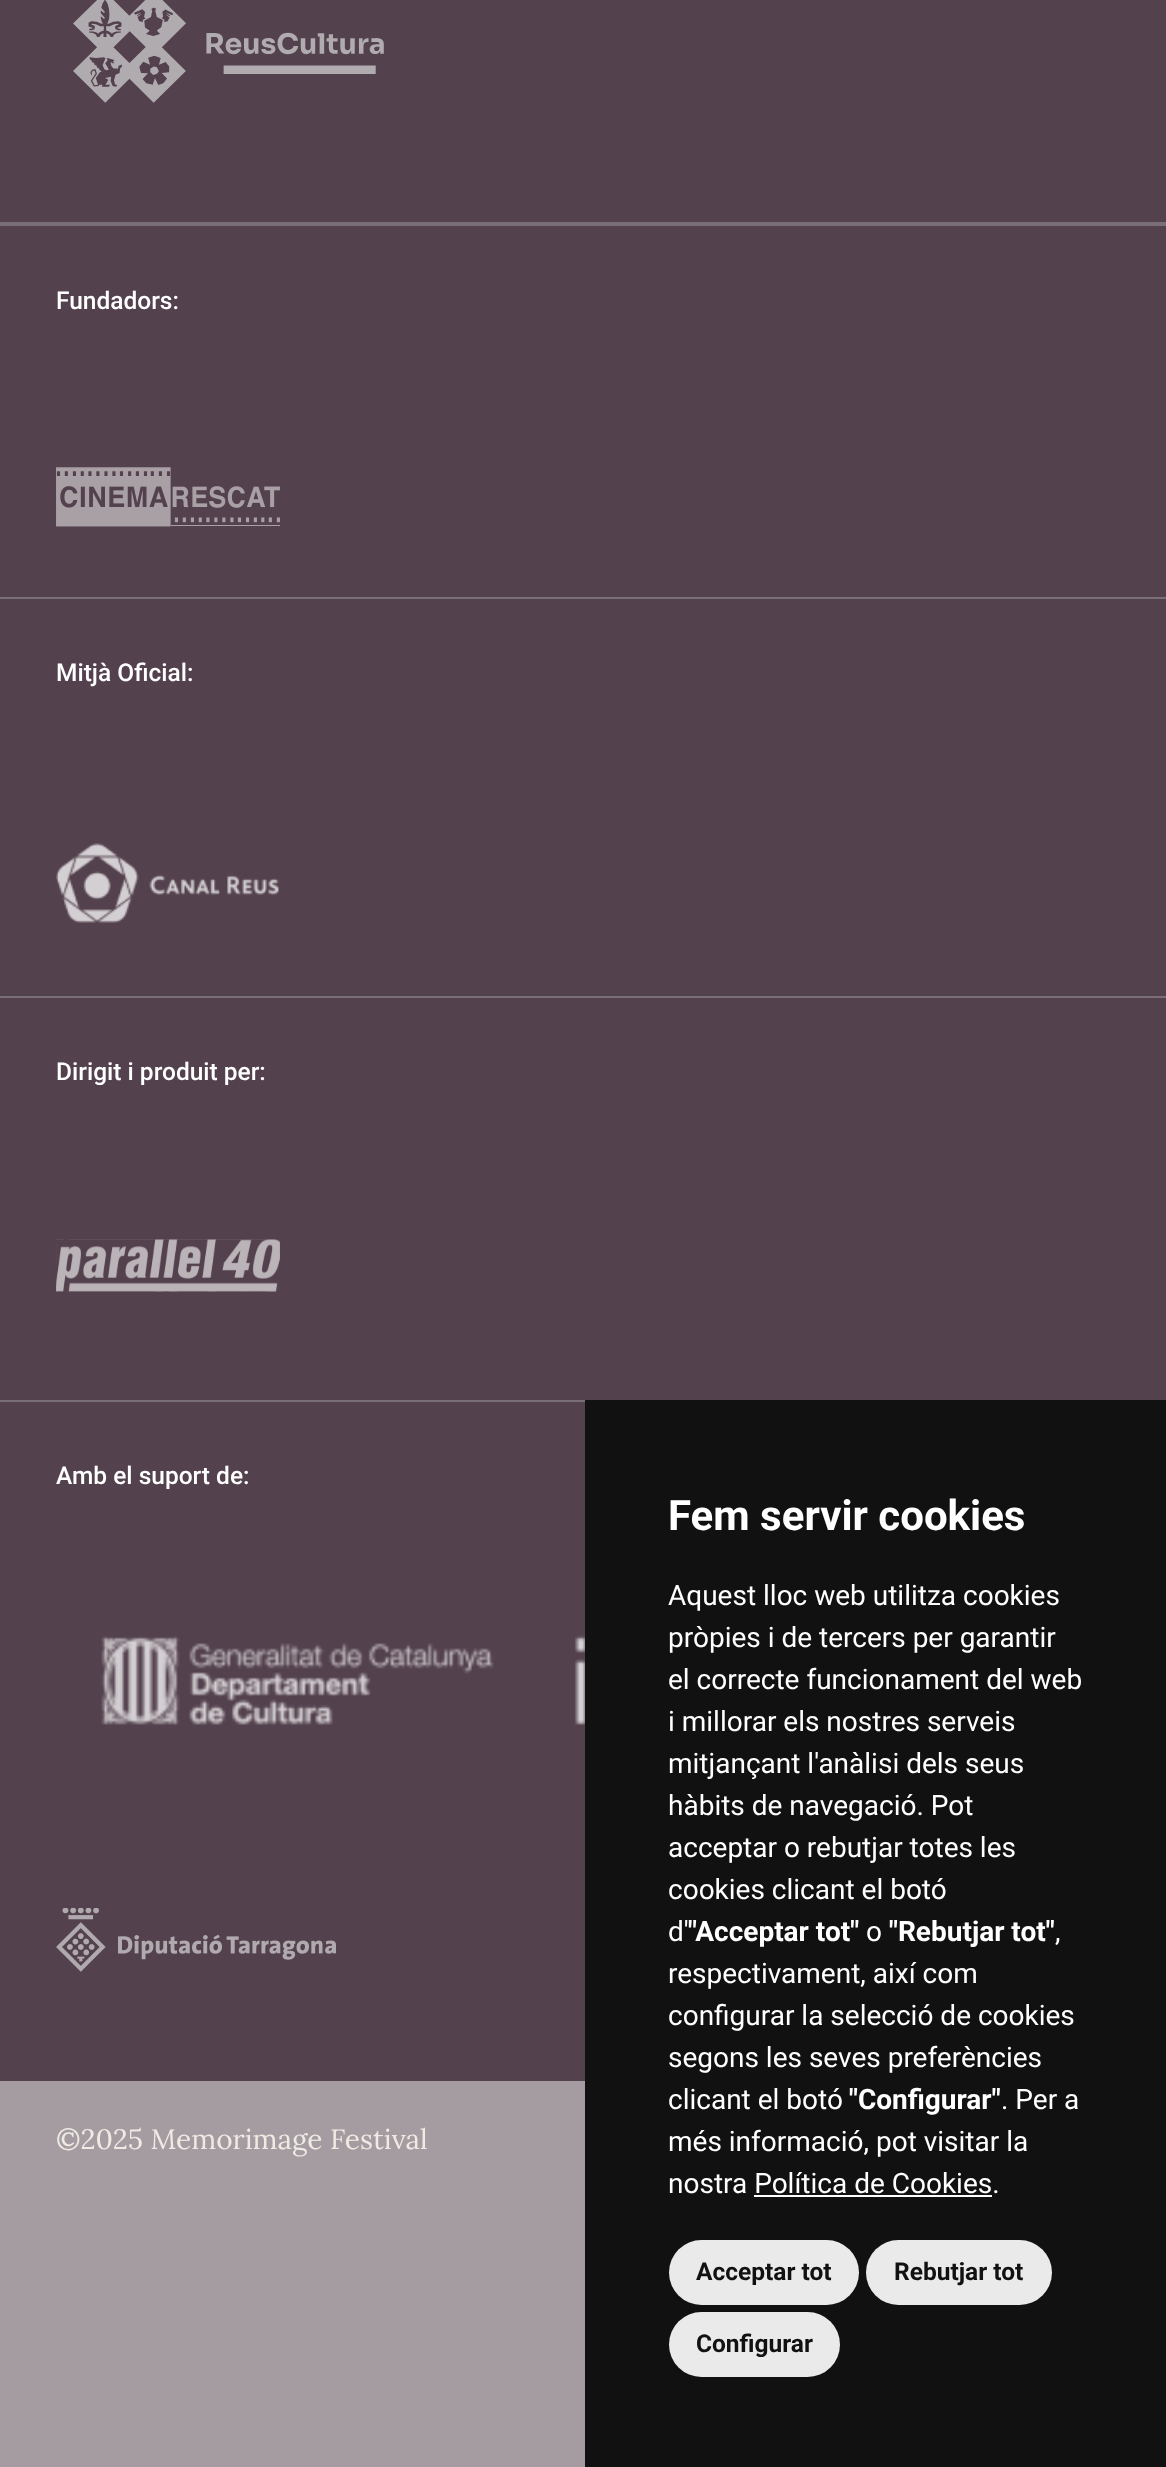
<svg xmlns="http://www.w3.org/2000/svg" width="1166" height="2467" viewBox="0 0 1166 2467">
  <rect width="100%" height="100%" fill="rgb(83,65,77)"/>
  <rect x="0" y="222" width="1166" height="4" fill="rgb(123,111,119)"/>
  <image x="73" y="0" width="311" height="103" href="pic1.png"/>
  <text x="56" y="309" font-family="Roboto" font-size="24.5" font-weight="500" fill="rgb(255,255,255)">Fundadors:</text>
  <image x="56" y="467" width="224" height="60" href="pic2.png"/>
  <rect x="0" y="597" width="1166" height="2" fill="rgb(123,111,119)"/>
  <text x="56" y="681" font-family="Roboto" font-size="24.5" font-weight="500" fill="rgb(255,255,255)">Mitjà Oficial:</text>
  <image x="56" y="843" width="223" height="80" href="pic3.png"/>
  <rect x="0" y="996" width="1166" height="2" fill="rgb(123,111,119)"/>
  <text x="56" y="1080" font-family="Roboto" font-size="24.5" font-weight="500" fill="rgb(255,255,255)">Dirigit i produit per:</text>
  <image x="56" y="1239" width="224" height="53" href="pic4.png"/>
  <rect x="0" y="1400" width="585" height="2" fill="rgb(123,111,119)"/>
  <text x="56" y="1484" font-family="Roboto" font-size="24.5" font-weight="500" fill="rgb(255,255,255)">Amb el suport de:</text>
  <image x="101" y="1635" width="484" height="90" href="pic5.png"/>
  <image x="56" y="1908" width="280" height="64" href="pic6.png"/>
  <rect x="0" y="2081" width="585" height="386" fill="rgb(164,156,161)"/>
  <text x="56" y="2149" font-family="Lora" font-size="28" fill="rgb(237,235,228)">©2025 Memorimage Festival</text>
  <rect x="585" y="1400" width="581" height="1067" fill="rgb(17,17,17)"/>
  <text x="668" y="1530" font-family="Roboto" font-size="42" font-weight="bold" fill="rgb(255,255,255)">Fem servir cookies</text>
  <g font-family="Roboto" font-size="28" fill="rgb(255,255,255)">
    <text>
      <tspan x="668" y="1605">Aquest lloc web utilitza cookies</tspan>
      <tspan x="668" y="1647">pròpies i de tercers per garantir</tspan>
      <tspan x="668" y="1689">el correcte funcionament del web</tspan>
      <tspan x="668" y="1731">i millorar els nostres serveis</tspan>
      <tspan x="668" y="1773">mitjançant l'anàlisi dels seus</tspan>
      <tspan x="668" y="1815">hàbits de navegació. Pot</tspan>
      <tspan x="668" y="1857">acceptar o rebutjar totes les</tspan>
      <tspan x="668" y="1899">cookies clicant el botó</tspan>
      <tspan x="668" y="1941">d'</tspan>
    </text>
  </g>
  <text x="688" y="1941" font-family="Roboto" font-size="28" font-weight="bold" fill="rgb(255,255,255)">"Acceptar tot"</text>
  <text x="866" y="1941" font-family="Roboto" font-size="28" fill="rgb(255,255,255)">o</text>
  <text x="889" y="1941" font-family="Roboto" font-size="28" font-weight="bold" fill="rgb(255,255,255)">"Rebutjar tot"</text>
  <g font-family="Roboto" font-size="28" fill="rgb(255,255,255)">
    <text x="1055" y="1941">,</text>
    <text>
      <tspan x="668" y="1983">respectivament, així com</tspan>
      <tspan x="668" y="2025">configurar la selecció de cookies</tspan>
      <tspan x="668" y="2067">segons les seves preferències</tspan>
      <tspan x="668" y="2109">clicant el botó</tspan>
    </text>
  </g>
  <text x="849" y="2109" font-family="Roboto" font-size="28" font-weight="bold" fill="rgb(255,255,255)">"Configurar"</text>
  <g font-family="Roboto" font-size="28" fill="rgb(255,255,255)">
    <text x="1001" y="2109">. Per a</text>
    <text>
      <tspan x="668" y="2151">més informació, pot visitar la</tspan>
      <tspan x="668" y="2193">nostra Política de Cookies.</tspan>
    </text>
  </g>
  <rect x="754" y="2195" width="238" height="2" fill="rgb(255,255,255)"/>
  <rect x="669" y="2240" width="190" height="65" rx="32.5" fill="rgb(234,234,234)"/>
  <text x="696" y="2280" font-family="Roboto" font-size="24.5" font-weight="bold" fill="rgb(17,17,17)">Acceptar tot</text>
  <rect x="866" y="2240" width="186" height="65" rx="32.5" fill="rgb(234,234,234)"/>
  <text x="894" y="2280" font-family="Roboto" font-size="24.5" font-weight="bold" fill="rgb(17,17,17)">Rebutjar tot</text>
  <rect x="669" y="2312" width="171" height="65" rx="32.5" fill="rgb(234,234,234)"/>
  <text x="696" y="2352" font-family="Roboto" font-size="24.5" font-weight="bold" fill="rgb(17,17,17)">Configurar</text>
</svg>
